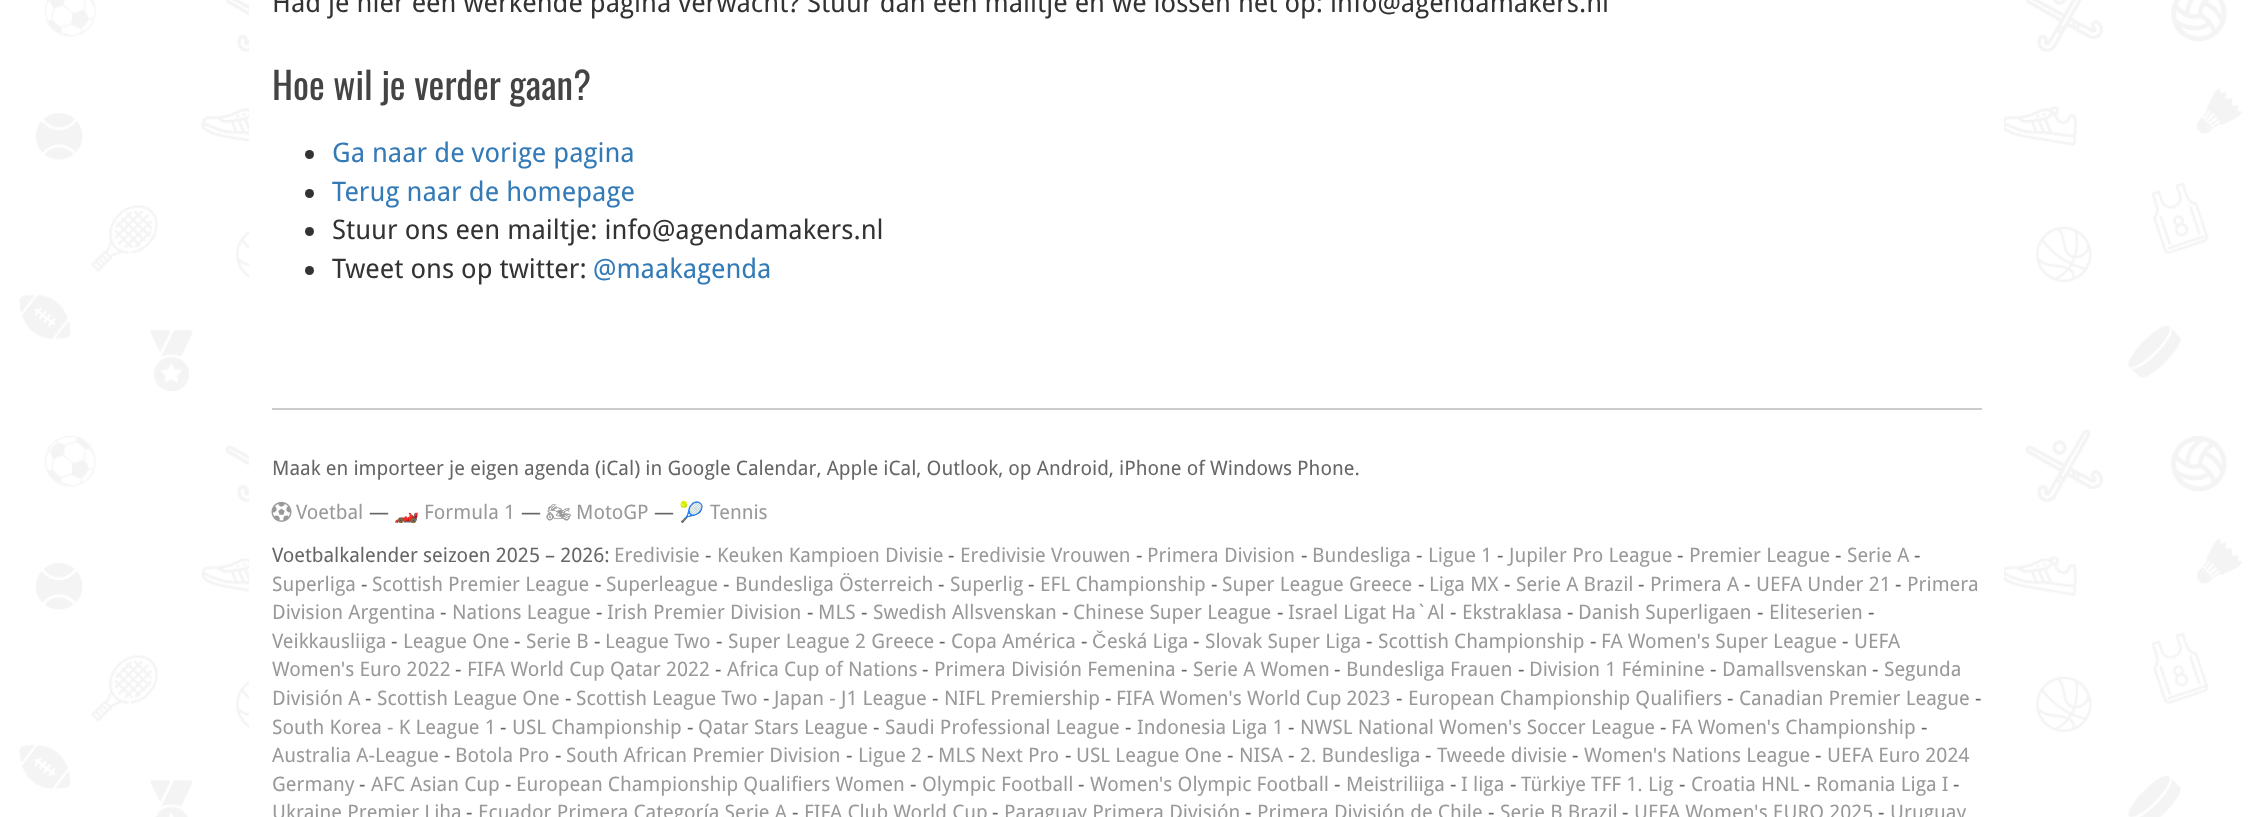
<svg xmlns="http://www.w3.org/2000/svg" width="2253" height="817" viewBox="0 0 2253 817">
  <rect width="100%" height="100%" fill="rgb(255,255,255)"/>
  <image x="19" y="0" width="2223" height="817" href="pic1.png"/>
  <rect x="249" y="0" width="1755" height="817" fill="rgb(255,255,255)"/>
  <text x="272" y="12" font-family="Droid Sans" font-size="27" fill="rgb(51,51,51)">Had je hier een werkende pagina verwacht? Stuur dan een mailtje en we lossen het op: info@agendamakers.nl</text>
  <text x="272" y="100" font-family="Oswald" font-size="37.5" fill="rgb(68,68,68)">Hoe wil je verder gaan?</text>
  <circle cx="309.5" cy="154.5" r="4.5" fill="rgb(51,51,51)"/>
  <text x="332" y="162" font-family="Droid Sans" font-size="27" fill="rgb(51,122,183)">Ga naar de vorige pagina</text>
  <circle cx="309.5" cy="193.5" r="4.5" fill="rgb(51,51,51)"/>
  <text x="332" y="201" font-family="Droid Sans" font-size="27" fill="rgb(51,122,183)">Terug naar de homepage</text>
  <circle cx="309.5" cy="231.5" r="4.5" fill="rgb(51,51,51)"/>
  <text x="332" y="239" font-family="Droid Sans" font-size="27" fill="rgb(51,51,51)">Stuur ons een mailtje: info@agendamakers.nl</text>
  <circle cx="309.5" cy="270.5" r="4.5" fill="rgb(51,51,51)"/>
  <text x="332" y="278" font-family="Droid Sans" font-size="27" fill="rgb(51,51,51)">Tweet ons op twitter:</text>
  <text x="593" y="278" font-family="Droid Sans" font-size="27" fill="rgb(51,122,183)">@maakagenda</text>
  <rect x="272" y="408" width="1710" height="2" fill="rgb(204,204,204)"/>
  <text x="272" y="475" font-family="Droid Sans" font-size="20" fill="rgb(102,102,102)">Maak en importeer je eigen agenda (iCal) in Google Calendar, Apple iCal, Outlook, op Android, iPhone of Windows Phone.</text>
  <image x="271" y="501" width="21" height="21" href="pic2.png"/>
  <text x="296" y="519" font-family="Droid Sans" font-size="20" fill="rgb(153,153,153)">Voetbal</text>
  <text x="369" y="519" font-family="Droid Sans" font-size="20" fill="rgb(102,102,102)">—</text>
  <text x="394" y="519" font-family="Noto Color Emoji" font-size="20" fill="rgb(153,153,153)">🏎️</text>
  <text x="424" y="519" font-family="Droid Sans" font-size="20" fill="rgb(153,153,153)">Formula 1</text>
  <text x="521" y="519" font-family="Droid Sans" font-size="20" fill="rgb(102,102,102)">—</text>
  <text x="546" y="519" font-family="Noto Emoji" font-size="20" fill="rgb(153,153,153)">🏍</text>
  <text x="576" y="519" font-family="Droid Sans" font-size="20" fill="rgb(153,153,153)">MotoGP</text>
  <text x="654" y="519" font-family="Droid Sans" font-size="20" fill="rgb(102,102,102)">—</text>
  <text x="679" y="519" font-family="Noto Color Emoji" font-size="20" fill="rgb(153,153,153)">🎾</text>
  <text x="710" y="519" font-family="Droid Sans" font-size="20" fill="rgb(153,153,153)">Tennis</text>
  <text x="272" y="562" font-family="Droid Sans" font-size="20" fill="rgb(102,102,102)">Voetbalkalender seizoen 2025 – 2026:</text>
  <text x="614" y="562" font-family="Droid Sans" font-size="20" fill="rgb(153,153,153)">Eredivisie</text>
  <text x="705" y="562" font-family="Droid Sans" font-size="20" fill="rgb(102,102,102)">-</text>
  <text x="717" y="562" font-family="Droid Sans" font-size="20" fill="rgb(153,153,153)">Keuken Kampioen Divisie</text>
  <text x="948" y="562" font-family="Droid Sans" font-size="20" fill="rgb(102,102,102)">-</text>
  <text x="960" y="562" font-family="Droid Sans" font-size="20" fill="rgb(153,153,153)">Eredivisie Vrouwen</text>
  <text x="1136" y="562" font-family="Droid Sans" font-size="20" fill="rgb(102,102,102)">-</text>
  <text x="1147" y="562" font-family="Droid Sans" font-size="20" fill="rgb(153,153,153)">Primera Division</text>
  <text x="1301" y="562" font-family="Droid Sans" font-size="20" fill="rgb(102,102,102)">-</text>
  <text x="1312" y="562" font-family="Droid Sans" font-size="20" fill="rgb(153,153,153)">Bundesliga</text>
  <text x="1416" y="562" font-family="Droid Sans" font-size="20" fill="rgb(102,102,102)">-</text>
  <text x="1428" y="562" font-family="Droid Sans" font-size="20" fill="rgb(153,153,153)">Ligue 1</text>
  <text x="1497" y="562" font-family="Droid Sans" font-size="20" fill="rgb(102,102,102)">-</text>
  <text x="1509" y="562" font-family="Droid Sans" font-size="20" fill="rgb(153,153,153)">Jupiler Pro League</text>
  <text x="1677" y="562" font-family="Droid Sans" font-size="20" fill="rgb(102,102,102)">-</text>
  <text x="1689" y="562" font-family="Droid Sans" font-size="20" fill="rgb(153,153,153)">Premier League</text>
  <text x="1835" y="562" font-family="Droid Sans" font-size="20" fill="rgb(102,102,102)">-</text>
  <text x="1847" y="562" font-family="Droid Sans" font-size="20" fill="rgb(153,153,153)">Serie A</text>
  <text x="1914" y="562" font-family="Droid Sans" font-size="20" fill="rgb(102,102,102)">-</text>
  <text x="272" y="591" font-family="Droid Sans" font-size="20" fill="rgb(153,153,153)">Superliga</text>
  <text x="361" y="591" font-family="Droid Sans" font-size="20" fill="rgb(102,102,102)">-</text>
  <text x="372" y="591" font-family="Droid Sans" font-size="20" fill="rgb(153,153,153)">Scottish Premier League</text>
  <text x="595" y="591" font-family="Droid Sans" font-size="20" fill="rgb(102,102,102)">-</text>
  <text x="606" y="591" font-family="Droid Sans" font-size="20" fill="rgb(153,153,153)">Superleague</text>
  <text x="723" y="591" font-family="Droid Sans" font-size="20" fill="rgb(102,102,102)">-</text>
  <text x="735" y="591" font-family="Droid Sans" font-size="20" fill="rgb(153,153,153)">Bundesliga Österreich</text>
  <text x="938" y="591" font-family="Droid Sans" font-size="20" fill="rgb(102,102,102)">-</text>
  <text x="950" y="591" font-family="Droid Sans" font-size="20" fill="rgb(153,153,153)">Superlig</text>
  <text x="1028" y="591" font-family="Droid Sans" font-size="20" fill="rgb(102,102,102)">-</text>
  <text x="1040" y="591" font-family="Droid Sans" font-size="20" fill="rgb(153,153,153)">EFL Championship</text>
  <text x="1211" y="591" font-family="Droid Sans" font-size="20" fill="rgb(102,102,102)">-</text>
  <text x="1222" y="591" font-family="Droid Sans" font-size="20" fill="rgb(153,153,153)">Super League Greece</text>
  <text x="1418" y="591" font-family="Droid Sans" font-size="20" fill="rgb(102,102,102)">-</text>
  <text x="1429" y="591" font-family="Droid Sans" font-size="20" fill="rgb(153,153,153)">Liga MX</text>
  <text x="1504" y="591" font-family="Droid Sans" font-size="20" fill="rgb(102,102,102)">-</text>
  <text x="1516" y="591" font-family="Droid Sans" font-size="20" fill="rgb(153,153,153)">Serie A Brazil</text>
  <text x="1638" y="591" font-family="Droid Sans" font-size="20" fill="rgb(102,102,102)">-</text>
  <text x="1650" y="591" font-family="Droid Sans" font-size="20" fill="rgb(153,153,153)">Primera A</text>
  <text x="1744" y="591" font-family="Droid Sans" font-size="20" fill="rgb(102,102,102)">-</text>
  <text x="1756" y="591" font-family="Droid Sans" font-size="20" fill="rgb(153,153,153)">UEFA Under 21</text>
  <text x="1895" y="591" font-family="Droid Sans" font-size="20" fill="rgb(102,102,102)">-</text>
  <g font-family="Droid Sans" font-size="20" fill="rgb(153,153,153)">
    <text x="1907" y="591">Primera</text>
    <text x="272" y="619">Division Argentina</text>
  </g>
  <text x="440" y="619" font-family="Droid Sans" font-size="20" fill="rgb(102,102,102)">-</text>
  <text x="452" y="619" font-family="Droid Sans" font-size="20" fill="rgb(153,153,153)">Nations League</text>
  <text x="596" y="619" font-family="Droid Sans" font-size="20" fill="rgb(102,102,102)">-</text>
  <text x="607" y="619" font-family="Droid Sans" font-size="20" fill="rgb(153,153,153)">Irish Premier Division</text>
  <text x="807" y="619" font-family="Droid Sans" font-size="20" fill="rgb(102,102,102)">-</text>
  <text x="818" y="619" font-family="Droid Sans" font-size="20" fill="rgb(153,153,153)">MLS</text>
  <text x="861" y="619" font-family="Droid Sans" font-size="20" fill="rgb(102,102,102)">-</text>
  <text x="873" y="619" font-family="Droid Sans" font-size="20" fill="rgb(153,153,153)">Swedish Allsvenskan</text>
  <text x="1062" y="619" font-family="Droid Sans" font-size="20" fill="rgb(102,102,102)">-</text>
  <text x="1073" y="619" font-family="Droid Sans" font-size="20" fill="rgb(153,153,153)">Chinese Super League</text>
  <text x="1277" y="619" font-family="Droid Sans" font-size="20" fill="rgb(102,102,102)">-</text>
  <text x="1288" y="619" font-family="Droid Sans" font-size="20" fill="rgb(153,153,153)">Israel Ligat Ha`Al</text>
  <text x="1450" y="619" font-family="Droid Sans" font-size="20" fill="rgb(102,102,102)">-</text>
  <text x="1462" y="619" font-family="Droid Sans" font-size="20" fill="rgb(153,153,153)">Ekstraklasa</text>
  <text x="1567" y="619" font-family="Droid Sans" font-size="20" fill="rgb(102,102,102)">-</text>
  <text x="1578" y="619" font-family="Droid Sans" font-size="20" fill="rgb(153,153,153)">Danish Superligaen</text>
  <text x="1757" y="619" font-family="Droid Sans" font-size="20" fill="rgb(102,102,102)">-</text>
  <text x="1769" y="619" font-family="Droid Sans" font-size="20" fill="rgb(153,153,153)">Eliteserien</text>
  <text x="1868" y="619" font-family="Droid Sans" font-size="20" fill="rgb(102,102,102)">-</text>
  <text x="272" y="648" font-family="Droid Sans" font-size="20" fill="rgb(153,153,153)">Veikkausliiga</text>
  <text x="391" y="648" font-family="Droid Sans" font-size="20" fill="rgb(102,102,102)">-</text>
  <text x="403" y="648" font-family="Droid Sans" font-size="20" fill="rgb(153,153,153)">League One</text>
  <text x="514" y="648" font-family="Droid Sans" font-size="20" fill="rgb(102,102,102)">-</text>
  <text x="526" y="648" font-family="Droid Sans" font-size="20" fill="rgb(153,153,153)">Serie B</text>
  <text x="594" y="648" font-family="Droid Sans" font-size="20" fill="rgb(102,102,102)">-</text>
  <text x="605" y="648" font-family="Droid Sans" font-size="20" fill="rgb(153,153,153)">League Two</text>
  <text x="716" y="648" font-family="Droid Sans" font-size="20" fill="rgb(102,102,102)">-</text>
  <text x="728" y="648" font-family="Droid Sans" font-size="20" fill="rgb(153,153,153)">Super League 2 Greece</text>
  <text x="939" y="648" font-family="Droid Sans" font-size="20" fill="rgb(102,102,102)">-</text>
  <text x="951" y="648" font-family="Droid Sans" font-size="20" fill="rgb(153,153,153)">Copa América</text>
  <text x="1081" y="648" font-family="Droid Sans" font-size="20" fill="rgb(102,102,102)">-</text>
  <text x="1092" y="648" font-family="Liberation Sans" font-size="20" fill="rgb(153,153,153)">Č</text>
  <text x="1107" y="648" font-family="Droid Sans" font-size="20" fill="rgb(153,153,153)">eská Liga</text>
  <text x="1193" y="648" font-family="Droid Sans" font-size="20" fill="rgb(102,102,102)">-</text>
  <text x="1205" y="648" font-family="Droid Sans" font-size="20" fill="rgb(153,153,153)">Slovak Super Liga</text>
  <text x="1366" y="648" font-family="Droid Sans" font-size="20" fill="rgb(102,102,102)">-</text>
  <text x="1378" y="648" font-family="Droid Sans" font-size="20" fill="rgb(153,153,153)">Scottish Championship</text>
  <text x="1590" y="648" font-family="Droid Sans" font-size="20" fill="rgb(102,102,102)">-</text>
  <text x="1601" y="648" font-family="Droid Sans" font-size="20" fill="rgb(153,153,153)">FA Women's Super League</text>
  <text x="1842" y="648" font-family="Droid Sans" font-size="20" fill="rgb(102,102,102)">-</text>
  <g font-family="Droid Sans" font-size="20" fill="rgb(153,153,153)">
    <text x="1854" y="648">UEFA</text>
    <text x="272" y="676">Women's Euro 2022</text>
  </g>
  <text x="455" y="676" font-family="Droid Sans" font-size="20" fill="rgb(102,102,102)">-</text>
  <text x="467" y="676" font-family="Droid Sans" font-size="20" fill="rgb(153,153,153)">FIFA World Cup Qatar 2022</text>
  <text x="715" y="676" font-family="Droid Sans" font-size="20" fill="rgb(102,102,102)">-</text>
  <text x="727" y="676" font-family="Droid Sans" font-size="20" fill="rgb(153,153,153)">Africa Cup of Nations</text>
  <text x="922" y="676" font-family="Droid Sans" font-size="20" fill="rgb(102,102,102)">-</text>
  <text x="934" y="676" font-family="Droid Sans" font-size="20" fill="rgb(153,153,153)">Primera División Femenina</text>
  <text x="1181" y="676" font-family="Droid Sans" font-size="20" fill="rgb(102,102,102)">-</text>
  <text x="1193" y="676" font-family="Droid Sans" font-size="20" fill="rgb(153,153,153)">Serie A Women</text>
  <text x="1334" y="676" font-family="Droid Sans" font-size="20" fill="rgb(102,102,102)">-</text>
  <text x="1346" y="676" font-family="Droid Sans" font-size="20" fill="rgb(153,153,153)">Bundesliga Frauen</text>
  <text x="1518" y="676" font-family="Droid Sans" font-size="20" fill="rgb(102,102,102)">-</text>
  <text x="1529" y="676" font-family="Droid Sans" font-size="20" fill="rgb(153,153,153)">Division 1 Féminine</text>
  <text x="1710" y="676" font-family="Droid Sans" font-size="20" fill="rgb(102,102,102)">-</text>
  <text x="1722" y="676" font-family="Droid Sans" font-size="20" fill="rgb(153,153,153)">Damallsvenskan</text>
  <text x="1872" y="676" font-family="Droid Sans" font-size="20" fill="rgb(102,102,102)">-</text>
  <g font-family="Droid Sans" font-size="20" fill="rgb(153,153,153)">
    <text x="1884" y="676">Segunda</text>
    <text x="272" y="705">División A</text>
  </g>
  <text x="365" y="705" font-family="Droid Sans" font-size="20" fill="rgb(102,102,102)">-</text>
  <text x="377" y="705" font-family="Droid Sans" font-size="20" fill="rgb(153,153,153)">Scottish League One</text>
  <text x="565" y="705" font-family="Droid Sans" font-size="20" fill="rgb(102,102,102)">-</text>
  <text x="576" y="705" font-family="Droid Sans" font-size="20" fill="rgb(153,153,153)">Scottish League Two</text>
  <text x="763" y="705" font-family="Droid Sans" font-size="20" fill="rgb(102,102,102)">-</text>
  <text x="774" y="705" font-family="Droid Sans" font-size="20" fill="rgb(153,153,153)">Japan - J1 League</text>
  <text x="932" y="705" font-family="Droid Sans" font-size="20" fill="rgb(102,102,102)">-</text>
  <text x="944" y="705" font-family="Droid Sans" font-size="20" fill="rgb(153,153,153)">NIFL Premiership</text>
  <text x="1105" y="705" font-family="Droid Sans" font-size="20" fill="rgb(102,102,102)">-</text>
  <text x="1116" y="705" font-family="Droid Sans" font-size="20" fill="rgb(153,153,153)">FIFA Women's World Cup 2023</text>
  <text x="1396" y="705" font-family="Droid Sans" font-size="20" fill="rgb(102,102,102)">-</text>
  <text x="1408" y="705" font-family="Droid Sans" font-size="20" fill="rgb(153,153,153)">European Championship Qualifiers</text>
  <text x="1727" y="705" font-family="Droid Sans" font-size="20" fill="rgb(102,102,102)">-</text>
  <text x="1739" y="705" font-family="Droid Sans" font-size="20" fill="rgb(153,153,153)">Canadian Premier League</text>
  <text x="1975" y="705" font-family="Droid Sans" font-size="20" fill="rgb(102,102,102)">-</text>
  <text x="272" y="734" font-family="Droid Sans" font-size="20" fill="rgb(153,153,153)">South Korea - K League 1</text>
  <text x="500" y="734" font-family="Droid Sans" font-size="20" fill="rgb(102,102,102)">-</text>
  <text x="512" y="734" font-family="Droid Sans" font-size="20" fill="rgb(153,153,153)">USL Championship</text>
  <text x="687" y="734" font-family="Droid Sans" font-size="20" fill="rgb(102,102,102)">-</text>
  <text x="698" y="734" font-family="Droid Sans" font-size="20" fill="rgb(153,153,153)">Qatar Stars League</text>
  <text x="873" y="734" font-family="Droid Sans" font-size="20" fill="rgb(102,102,102)">-</text>
  <text x="885" y="734" font-family="Droid Sans" font-size="20" fill="rgb(153,153,153)">Saudi Professional League</text>
  <text x="1125" y="734" font-family="Droid Sans" font-size="20" fill="rgb(102,102,102)">-</text>
  <text x="1137" y="734" font-family="Droid Sans" font-size="20" fill="rgb(153,153,153)">Indonesia Liga 1</text>
  <text x="1288" y="734" font-family="Droid Sans" font-size="20" fill="rgb(102,102,102)">-</text>
  <text x="1300" y="734" font-family="Droid Sans" font-size="20" fill="rgb(153,153,153)">NWSL National Women's Soccer League</text>
  <text x="1660" y="734" font-family="Droid Sans" font-size="20" fill="rgb(102,102,102)">-</text>
  <text x="1671" y="734" font-family="Droid Sans" font-size="20" fill="rgb(153,153,153)">FA Women's Championship</text>
  <text x="1921" y="734" font-family="Droid Sans" font-size="20" fill="rgb(102,102,102)">-</text>
  <text x="272" y="762" font-family="Droid Sans" font-size="20" fill="rgb(153,153,153)">Australia A-League</text>
  <text x="444" y="762" font-family="Droid Sans" font-size="20" fill="rgb(102,102,102)">-</text>
  <text x="455" y="762" font-family="Droid Sans" font-size="20" fill="rgb(153,153,153)">Botola Pro</text>
  <text x="555" y="762" font-family="Droid Sans" font-size="20" fill="rgb(102,102,102)">-</text>
  <text x="566" y="762" font-family="Droid Sans" font-size="20" fill="rgb(153,153,153)">South African Premier Division</text>
  <text x="846" y="762" font-family="Droid Sans" font-size="20" fill="rgb(102,102,102)">-</text>
  <text x="858" y="762" font-family="Droid Sans" font-size="20" fill="rgb(153,153,153)">Ligue 2</text>
  <text x="927" y="762" font-family="Droid Sans" font-size="20" fill="rgb(102,102,102)">-</text>
  <text x="938" y="762" font-family="Droid Sans" font-size="20" fill="rgb(153,153,153)">MLS Next Pro</text>
  <text x="1065" y="762" font-family="Droid Sans" font-size="20" fill="rgb(102,102,102)">-</text>
  <text x="1076" y="762" font-family="Droid Sans" font-size="20" fill="rgb(153,153,153)">USL League One</text>
  <text x="1227" y="762" font-family="Droid Sans" font-size="20" fill="rgb(102,102,102)">-</text>
  <text x="1239" y="762" font-family="Droid Sans" font-size="20" fill="rgb(153,153,153)">NISA</text>
  <text x="1288" y="762" font-family="Droid Sans" font-size="20" fill="rgb(102,102,102)">-</text>
  <text x="1300" y="762" font-family="Droid Sans" font-size="20" fill="rgb(153,153,153)">2. Bundesliga</text>
  <text x="1425" y="762" font-family="Droid Sans" font-size="20" fill="rgb(102,102,102)">-</text>
  <text x="1437" y="762" font-family="Droid Sans" font-size="20" fill="rgb(153,153,153)">Tweede divisie</text>
  <text x="1572" y="762" font-family="Droid Sans" font-size="20" fill="rgb(102,102,102)">-</text>
  <text x="1584" y="762" font-family="Droid Sans" font-size="20" fill="rgb(153,153,153)">Women's Nations League</text>
  <text x="1815" y="762" font-family="Droid Sans" font-size="20" fill="rgb(102,102,102)">-</text>
  <g font-family="Droid Sans" font-size="20" fill="rgb(153,153,153)">
    <text x="1827" y="762">UEFA Euro 2024</text>
    <text x="272" y="791">Germany</text>
  </g>
  <text x="359" y="791" font-family="Droid Sans" font-size="20" fill="rgb(102,102,102)">-</text>
  <text x="371" y="791" font-family="Droid Sans" font-size="20" fill="rgb(153,153,153)">AFC Asian Cup</text>
  <text x="505" y="791" font-family="Droid Sans" font-size="20" fill="rgb(102,102,102)">-</text>
  <text x="516" y="791" font-family="Droid Sans" font-size="20" fill="rgb(153,153,153)">European Championship Qualifiers Women</text>
  <text x="910" y="791" font-family="Droid Sans" font-size="20" fill="rgb(102,102,102)">-</text>
  <text x="922" y="791" font-family="Droid Sans" font-size="20" fill="rgb(153,153,153)">Olympic Football</text>
  <text x="1078" y="791" font-family="Droid Sans" font-size="20" fill="rgb(102,102,102)">-</text>
  <text x="1090" y="791" font-family="Droid Sans" font-size="20" fill="rgb(153,153,153)">Women's Olympic Football</text>
  <text x="1334" y="791" font-family="Droid Sans" font-size="20" fill="rgb(102,102,102)">-</text>
  <text x="1346" y="791" font-family="Droid Sans" font-size="20" fill="rgb(153,153,153)">Meistriliiga</text>
  <text x="1450" y="791" font-family="Droid Sans" font-size="20" fill="rgb(102,102,102)">-</text>
  <text x="1461" y="791" font-family="Droid Sans" font-size="20" fill="rgb(153,153,153)">I liga</text>
  <text x="1510" y="791" font-family="Droid Sans" font-size="20" fill="rgb(102,102,102)">-</text>
  <text x="1521" y="791" font-family="Droid Sans" font-size="20" fill="rgb(153,153,153)">Türkiye TFF 1. Lig</text>
  <text x="1679" y="791" font-family="Droid Sans" font-size="20" fill="rgb(102,102,102)">-</text>
  <text x="1691" y="791" font-family="Droid Sans" font-size="20" fill="rgb(153,153,153)">Croatia HNL</text>
  <text x="1804" y="791" font-family="Droid Sans" font-size="20" fill="rgb(102,102,102)">-</text>
  <text x="1816" y="791" font-family="Droid Sans" font-size="20" fill="rgb(153,153,153)">Romania Liga I</text>
  <text x="1953" y="791" font-family="Droid Sans" font-size="20" fill="rgb(102,102,102)">-</text>
  <text x="272" y="819" font-family="Droid Sans" font-size="20" fill="rgb(153,153,153)">Ukraine Premjer Liha</text>
  <text x="466" y="819" font-family="Droid Sans" font-size="20" fill="rgb(102,102,102)">-</text>
  <text x="478" y="819" font-family="Droid Sans" font-size="20" fill="rgb(153,153,153)">Ecuador Primera Categoría Serie A</text>
  <text x="792" y="819" font-family="Droid Sans" font-size="20" fill="rgb(102,102,102)">-</text>
  <text x="804" y="819" font-family="Droid Sans" font-size="20" fill="rgb(153,153,153)">FIFA Club World Cup</text>
  <text x="992" y="819" font-family="Droid Sans" font-size="20" fill="rgb(102,102,102)">-</text>
  <text x="1004" y="819" font-family="Droid Sans" font-size="20" fill="rgb(153,153,153)">Paraguay Primera División</text>
  <text x="1245" y="819" font-family="Droid Sans" font-size="20" fill="rgb(102,102,102)">-</text>
  <text x="1257" y="819" font-family="Droid Sans" font-size="20" fill="rgb(153,153,153)">Primera División de Chile</text>
  <text x="1488" y="819" font-family="Droid Sans" font-size="20" fill="rgb(102,102,102)">-</text>
  <text x="1500" y="819" font-family="Droid Sans" font-size="20" fill="rgb(153,153,153)">Serie B Brazil</text>
  <text x="1622" y="819" font-family="Droid Sans" font-size="20" fill="rgb(102,102,102)">-</text>
  <text x="1634" y="819" font-family="Droid Sans" font-size="20" fill="rgb(153,153,153)">UEFA Women's EURO 2025</text>
  <text x="1878" y="819" font-family="Droid Sans" font-size="20" fill="rgb(102,102,102)">-</text>
  <text x="1890" y="819" font-family="Droid Sans" font-size="20" fill="rgb(153,153,153)">Uruguay</text>
</svg>
